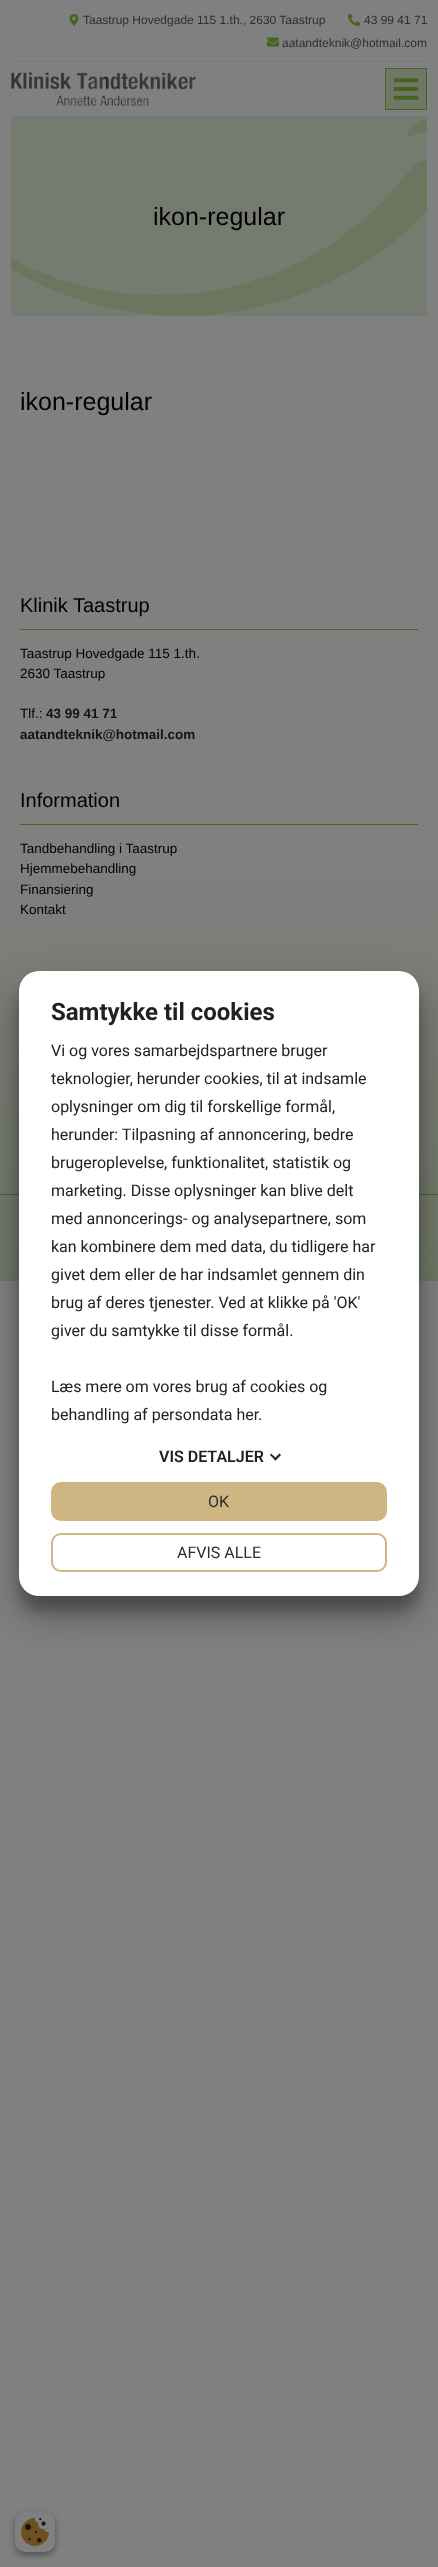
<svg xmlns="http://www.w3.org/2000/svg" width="438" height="2567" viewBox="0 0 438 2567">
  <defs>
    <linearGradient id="g1" gradientUnits="userSpaceOnUse" x1="219" y1="1281" x2="219" y2="0"><stop offset="0" stop-color="rgb(112,119,102)"/><stop offset="0.35" stop-color="rgb(128,128,128)"/></linearGradient>
  </defs>
  <rect width="100%" height="100%" fill="rgb(128,128,128)"/>
  <rect x="0" y="876" width="438" height="405" fill="url(#g1)"/>
  <rect x="11" y="61" width="416" height="1" fill="rgb(120,120,120)"/>
  <image x="69" y="14" width="10" height="12" href="pic1.png"/>
  <text x="83" y="24" font-family="Liberation Sans" font-size="12" fill="rgb(46,46,46)">Taastrup Hovedgade 115 1.th., 2630 Taastrup</text>
  <image x="348" y="14" width="12" height="12" href="pic2.png"/>
  <text x="364" y="24" font-family="Liberation Sans" font-size="12" fill="rgb(46,46,46)">43 99 41 71</text>
  <image x="267" y="37" width="12" height="10" href="pic3.png"/>
  <text x="282" y="47" font-family="Liberation Sans" font-size="12" fill="rgb(46,46,46)">aatandteknik@hotmail.com</text>
  <image x="11" y="72" width="185" height="34" href="pic4.png"/>
  <rect x="385.5" y="68.5" width="41" height="41" fill="rgb(112,119,102)" stroke="rgb(69,99,32)"/>
  <image x="393" y="78" width="26" height="22" href="pic5.png"/>
  <rect x="11" y="116" width="416" height="200" fill="rgb(118,123,112)"/>
  <image x="11" y="118" width="416" height="198" href="pic6.png"/>
  <g font-family="Liberation Sans" font-size="25" fill="rgb(0,0,0)">
    <text x="153" y="225">ikon-regular</text>
    <text x="20" y="410">ikon-regular</text>
  </g>
  <rect x="20" y="629" width="398" height="1" fill="rgb(71,99,33)"/>
  <text x="20" y="612" font-family="Liberation Sans" font-size="20" fill="rgb(0,0,0)">Klinik Taastrup</text>
  <g font-family="Liberation Sans" font-size="13.5" fill="rgb(0,0,0)">
    <text>
      <tspan x="20" y="658">Taastrup Hovedgade 115 1.th.</tspan>
      <tspan x="20" y="678">2630 Taastrup</tspan>
    </text>
    <text x="20" y="718">Tlf.:</text>
  </g>
  <g font-family="Liberation Sans" font-size="13.5" font-weight="bold" fill="rgb(19,19,19)">
    <text x="46" y="718">43 99 41 71</text>
    <text x="20" y="739">aatandteknik@hotmail.com</text>
  </g>
  <rect x="20" y="824" width="398" height="1" fill="rgb(71,99,33)"/>
  <text x="20" y="807" font-family="Liberation Sans" font-size="20" fill="rgb(0,0,0)">Information</text>
  <g font-family="Liberation Sans" font-size="13.5" fill="rgb(0,0,0)">
    <text>
      <tspan x="20" y="853">Tandbehandling i Taastrup</tspan>
      <tspan x="20" y="873">Hjemmebehandling</tspan>
      <tspan x="20" y="894">Finansiering</tspan>
      <tspan x="20" y="914">Kontakt</tspan>
    </text>
  </g>
  <rect x="0" y="1194" width="438" height="1" fill="rgb(71,99,33)"/>
  <rect x="19" y="986" width="400" height="625" rx="20" fill="rgba(0,0,0,0.22)" filter="blur(6px)"/>
  <rect x="19" y="990" width="400" height="625" rx="20" fill="rgba(0,0,0,0.3)" filter="blur(19px)"/>
  <rect x="19" y="971" width="400" height="625" rx="20" fill="rgb(255,255,255)"/>
  <text x="51" y="1020" font-family="Roboto" font-size="24" font-weight="bold" fill="rgb(33,33,33)">Samtykke til cookies</text>
  <g font-family="Roboto" font-size="16" fill="rgb(33,33,33)">
    <text>
      <tspan x="51" y="1056">Vi og vores samarbejdspartnere bruger</tspan>
      <tspan x="51" y="1084">teknologier, herunder cookies, til at indsamle</tspan>
      <tspan x="51" y="1112">oplysninger om dig til forskellige formål,</tspan>
      <tspan x="51" y="1140">herunder: Tilpasning af annoncering, bedre</tspan>
      <tspan x="51" y="1168">brugeroplevelse, funktionalitet, statistik og</tspan>
      <tspan x="51" y="1196">marketing. Disse oplysninger kan blive delt</tspan>
      <tspan x="51" y="1224">med annoncerings- og analysepartnere, som</tspan>
      <tspan x="51" y="1252">kan kombinere dem med data, du tidligere har</tspan>
      <tspan x="51" y="1280">givet dem eller de har indsamlet gennem din</tspan>
      <tspan x="51" y="1308">brug af deres tjenester. Ved at klikke på 'OK'</tspan>
      <tspan x="51" y="1336">giver du samtykke til disse formål.</tspan>
    </text>
    <text>
      <tspan x="51" y="1392">Læs mere om vores brug af cookies og</tspan>
      <tspan x="51" y="1420">behandling af persondata her</tspan>
    </text>
    <text x="258" y="1420">.</text>
  </g>
  <text x="159" y="1462" font-family="Roboto" font-size="16" font-weight="600" fill="rgb(33,33,33)">VIS DETALJER</text>
  <path d="M279.5 1453.5L281 1455L275.5 1460.5L274 1459Z" fill="rgb(33,33,33)"/>
  <path d="M271 1453.5L277 1459L275.5 1460.5L270 1455Z" fill="rgb(33,33,33)"/>
  <rect x="52" y="1483" width="334" height="37" rx="9" fill="rgb(206,181,130)" stroke="rgb(206,181,130)" stroke-width="2"/>
  <text x="208" y="1507" font-family="Roboto" font-size="16" fill="rgb(46,46,46)">OK</text>
  <rect x="52" y="1534" width="334" height="37" rx="9" fill="none" stroke="rgb(206,181,130)" stroke-width="2"/>
  <text x="177" y="1558" font-family="Roboto" font-size="16" fill="rgb(46,46,46)">AFVIS ALLE</text>
  <rect x="15" y="2515" width="40" height="40" rx="10" fill="rgba(0,0,0,0.23)" filter="blur(3px)"/>
  <rect x="15" y="2515" width="40" height="40" rx="10" fill="rgba(0,0,0,0.16)" filter="blur(3px)"/>
  <rect x="15" y="2512" width="40" height="40" rx="10" fill="rgb(128,128,128)"/>
  <image x="21" y="2518" width="28" height="28" href="pic7.png"/>
</svg>
